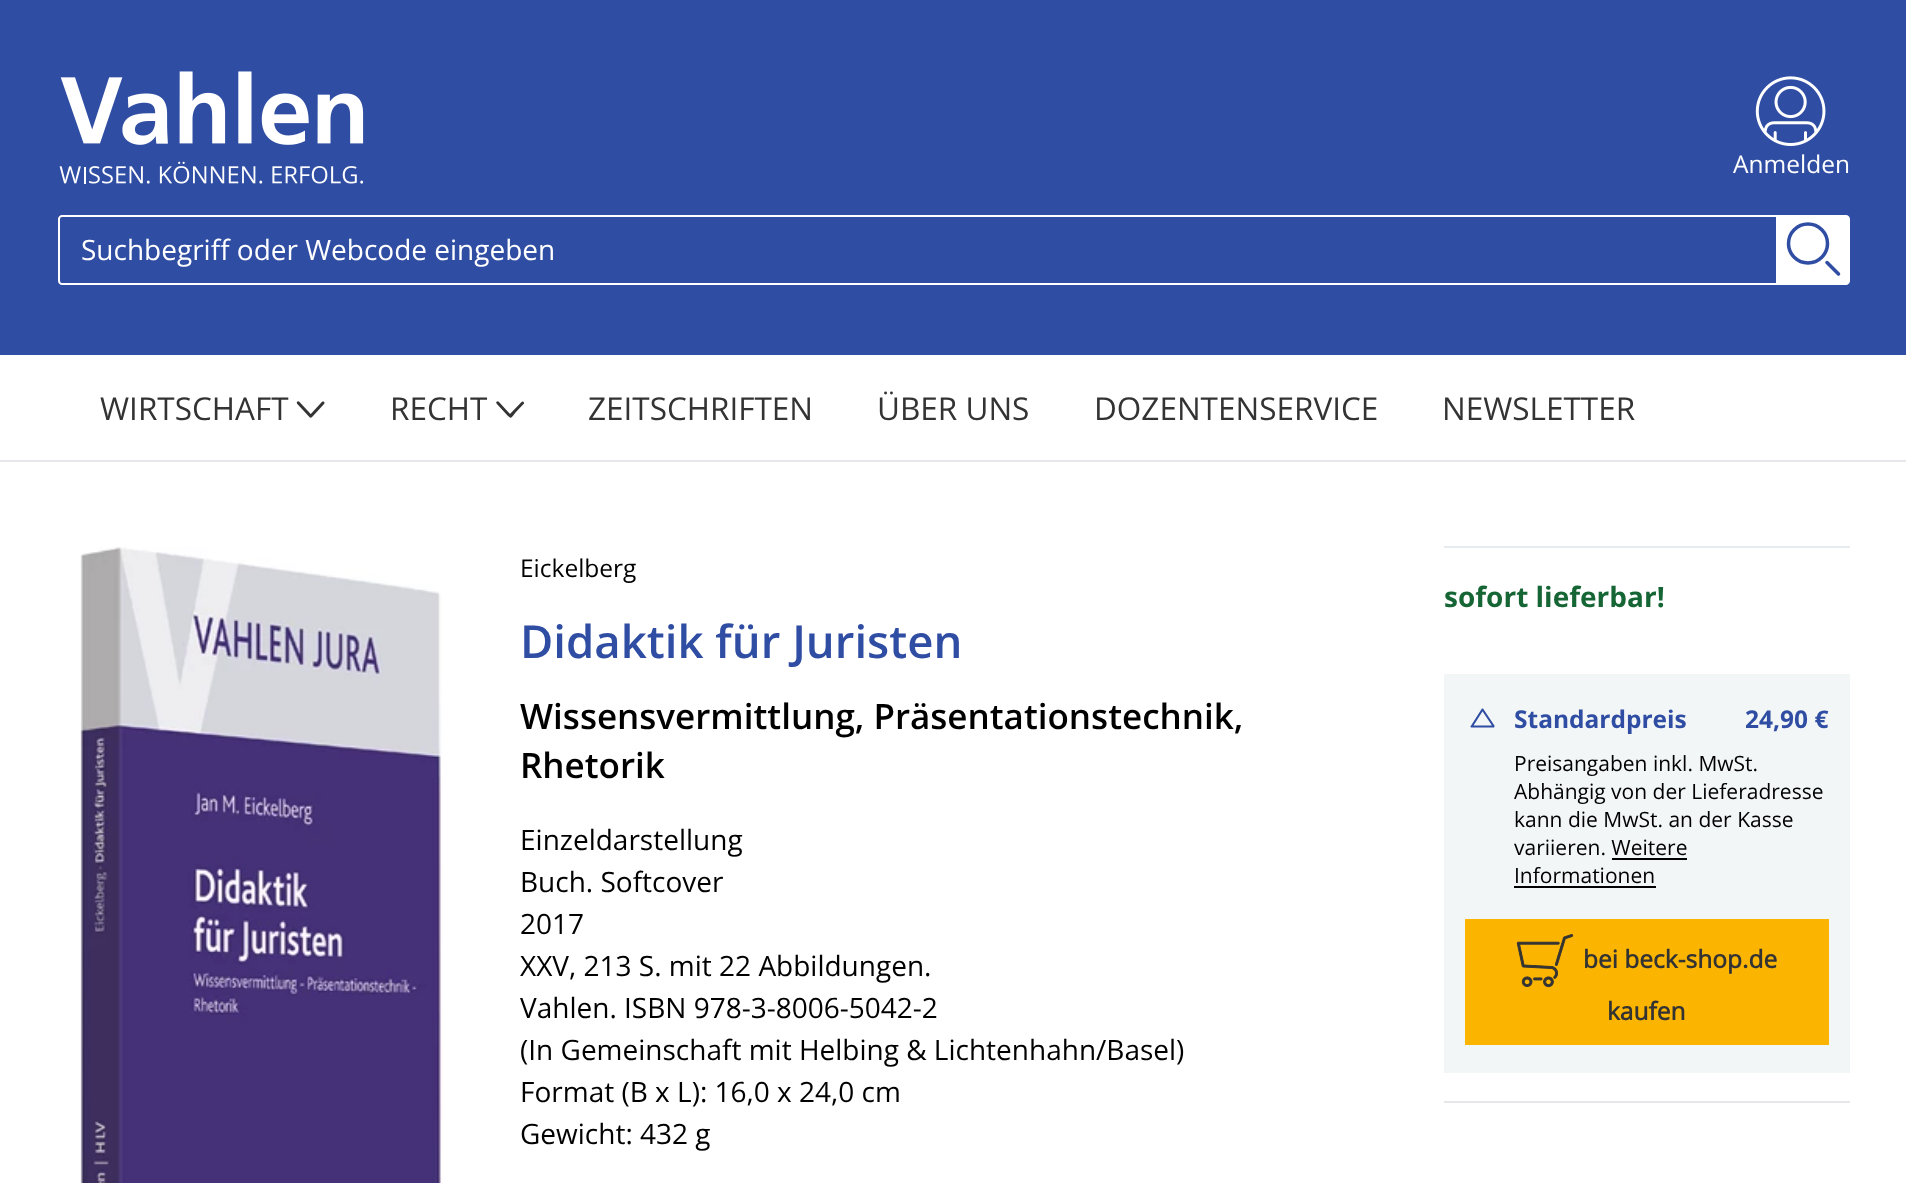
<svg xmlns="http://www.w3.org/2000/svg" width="1906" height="1183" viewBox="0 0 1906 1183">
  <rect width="100%" height="100%" fill="rgb(255,255,255)"/>
  <rect x="0" y="0" width="1906" height="355" fill="rgb(47,77,163)"/>
  <image x="59" y="71" width="305" height="113" href="pic1.png"/>
  <image x="1755" y="76" width="71" height="70" href="pic2.png"/>
  <text x="1733" y="173" font-family="Open Sans" font-size="24.5" fill="rgb(255,255,255)">Anmelden</text>
  <path d="M62 216H1777V284H62C60.5 284 59 282.5 59 281V219C59 217.5 60.5 216 62 216Z" fill="none" stroke="rgb(255,255,255)" stroke-width="2"/>
  <text x="81" y="260" font-family="Open Sans" font-size="28" fill="rgb(255,255,255)">Suchbegriff oder Webcode eingeben</text>
  <path d="M1778 215H1846C1848 215 1850 217 1850 219V281C1850 283 1848 285 1846 285H1778Z" fill="rgb(255,255,255)"/>
  <path d="M1827 262.5L1838.5 274" fill="none" stroke="rgb(47,77,163)" stroke-width="3.5" stroke-linecap="round" stroke-linejoin="round"/>
  <circle cx="1808" cy="243.5" r="19.5" fill="none" stroke="rgb(47,77,163)" stroke-width="3.5"/>
  <text x="100" y="420" font-family="Open Sans" font-size="31.5" fill="rgb(51,51,51)">WIRTSCHAFT</text>
  <image x="296" y="401" width="29" height="17" href="pic3.png"/>
  <text x="390" y="420" font-family="Open Sans" font-size="31.5" fill="rgb(51,51,51)">RECHT</text>
  <path d="M523 403L514.5 412C510 417.5 511.5 418 508 414.5L497.5 403C497 402.5 497.5 402 498 402.5L510 415.5L522.5 402.5C522.5 402.5 523 402.5 523 403Z" fill="none" stroke="rgb(51,51,51)" stroke-width="2.1"/>
  <g font-family="Open Sans" font-size="31.5" fill="rgb(51,51,51)">
    <text x="588" y="420">ZEITSCHRIFTEN</text>
    <text x="877" y="420">ÜBER UNS</text>
    <text x="1094" y="420">DOZENTENSERVICE</text>
    <text x="1442" y="420">NEWSLETTER</text>
  </g>
  <rect x="0" y="460" width="1906" height="2" fill="rgb(229,231,235)"/>
  <image x="80" y="547" width="363" height="636" href="pic4.png"/>
  <text x="520" y="577" font-family="Open Sans" font-size="24.5" fill="rgb(0,0,0)">Eickelberg</text>
  <text x="520" y="658" font-family="Open Sans" font-size="45.5" font-weight="600" fill="rgb(47,77,163)">Didaktik für Juristen</text>
  <g font-family="Open Sans" font-size="35" font-weight="600" fill="rgb(0,0,0)">
    <text>
      <tspan x="520" y="729">Wissensvermittlung, Präsentationstechnik,</tspan>
      <tspan x="520" y="778">Rhetorik</tspan>
    </text>
  </g>
  <g font-family="Open Sans" font-size="28" fill="rgb(0,0,0)">
    <text>
      <tspan x="520" y="850">Einzeldarstellung</tspan>
      <tspan x="520" y="892">Buch. Softcover</tspan>
      <tspan x="520" y="934">2017</tspan>
      <tspan x="520" y="976">XXV, 213 S. mit 22 Abbildungen.</tspan>
      <tspan x="520" y="1018">Vahlen. ISBN 978-3-8006-5042-2</tspan>
      <tspan x="520" y="1060">(In Gemeinschaft mit Helbing &amp; Lichtenhahn/Basel)</tspan>
      <tspan x="520" y="1102">Format (B x L): 16,0 x 24,0 cm</tspan>
      <tspan x="520" y="1144">Gewicht: 432 g</tspan>
    </text>
  </g>
  <rect x="1444" y="546" width="406" height="2" fill="rgb(229,235,238)"/>
  <text x="1444" y="607" font-family="Open Sans" font-size="28" font-weight="bold" fill="rgb(22,101,52)">sofort lieferbar!</text>
  <rect x="1444" y="674" width="406" height="399" fill="rgb(243,246,247)"/>
  <path d="M1471.5 726.5H1493.5M1472 726L1482.5 709.5L1493.5 726" fill="none" stroke="rgb(47,77,163)" stroke-width="2.1" stroke-linecap="round" stroke-linejoin="round"/>
  <g font-family="Open Sans" font-size="24.5" font-weight="bold" fill="rgb(47,77,163)">
    <text x="1514" y="728">Standardpreis</text>
    <text x="1745" y="728">24,90 €</text>
  </g>
  <g font-family="Open Sans" font-size="21" fill="rgb(0,0,0)">
    <text>
      <tspan x="1514" y="771">Preisangaben inkl. MwSt.</tspan>
      <tspan x="1514" y="799">Abhängig von der Lieferadresse</tspan>
      <tspan x="1514" y="827">kann die MwSt. an der Kasse</tspan>
      <tspan x="1514" y="855">variieren. Weitere</tspan>
      <tspan x="1514" y="883">Informationen</tspan>
    </text>
  </g>
  <rect x="1612" y="858" width="75" height="2" fill="rgb(0,0,0)"/>
  <rect x="1514" y="886" width="142" height="2" fill="rgb(0,0,0)"/>
  <rect x="1465" y="919" width="364" height="126" fill="rgb(251,181,0)"/>
  <image x="1516" y="934" width="58" height="54" href="pic5.png"/>
  <g font-family="'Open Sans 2'" font-size="24.5" font-weight="bold" fill="rgb(51,51,51)">
    <text x="1583" y="968">bei beck-shop.de</text>
    <text x="1607" y="1020">kaufen</text>
  </g>
  <rect x="1444" y="1101" width="406" height="2" fill="rgb(229,231,235)"/>
</svg>
